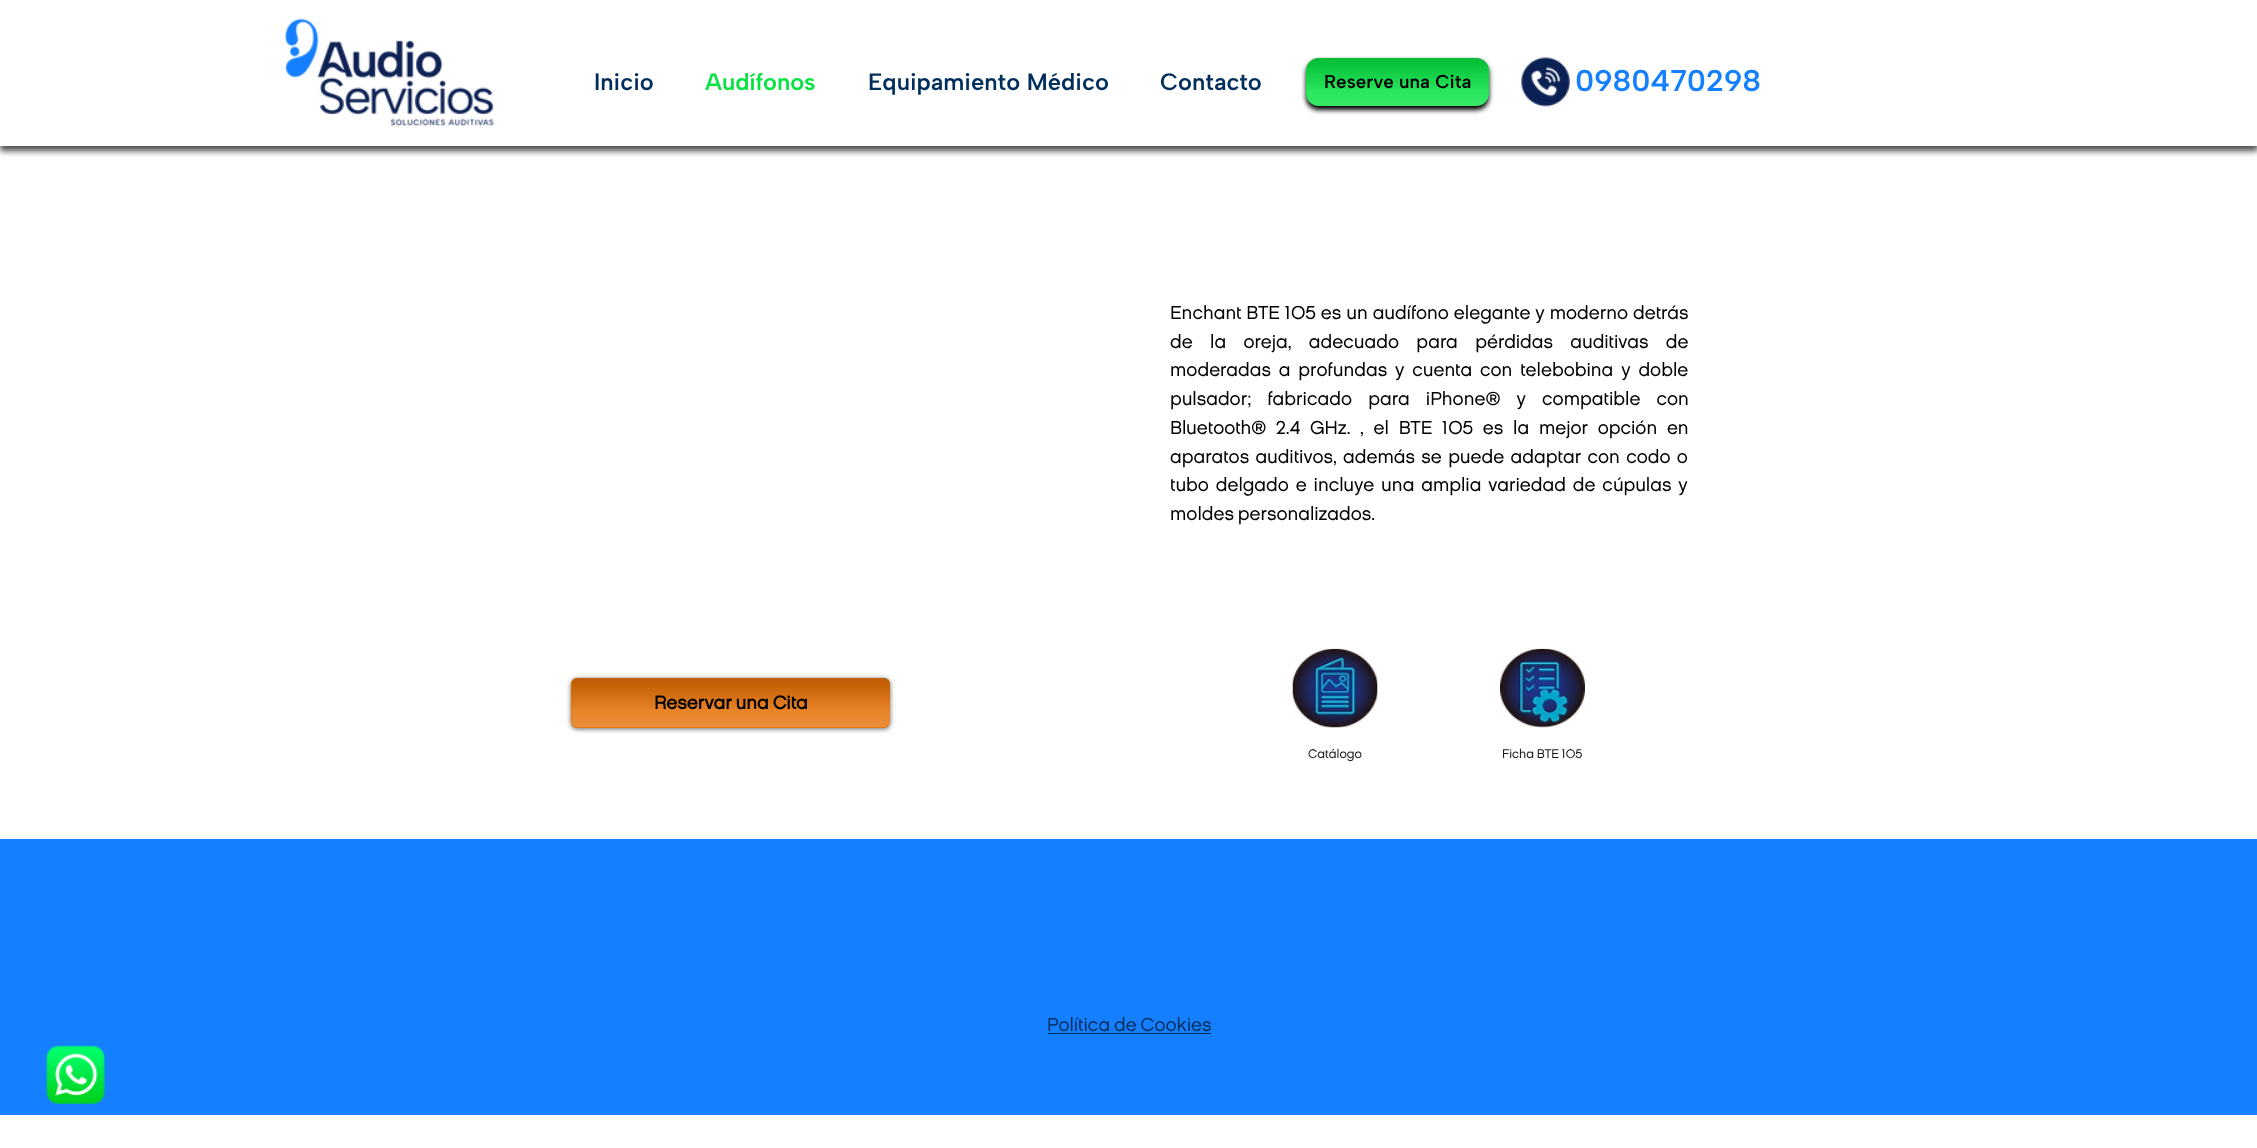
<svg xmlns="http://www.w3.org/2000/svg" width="2257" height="1148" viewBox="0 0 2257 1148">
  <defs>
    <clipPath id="clip1"><rect x="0" y="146" width="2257" height="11"/></clipPath>
  </defs>
  <rect width="100%" height="100%" fill="rgb(255,255,255)"/>
  <g clip-path="url(#clip1)">
    <rect x="0" y="5" width="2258" height="146" fill="rgba(0,0,0,0.7)" filter="blur(3px)"/>
  </g>
  <image x="284" y="18" width="210" height="109" href="pic1.png"/>
  <text x="594" y="90" font-family="Albert Sans" font-size="23.75" font-weight="600" fill="rgb(0,46,93)">Inicio</text>
  <text x="705" y="90" font-family="Albert Sans" font-size="23.75" font-weight="600" fill="rgb(7,227,66)">Audífonos</text>
  <g font-family="Albert Sans" font-size="23.75" font-weight="600" fill="rgb(0,46,93)">
    <text x="868" y="90">Equipamiento Médico</text>
    <text x="1160" y="90">Contacto</text>
  </g>
  <rect x="1306" y="61" width="183" height="49" rx="13" fill="rgb(0,0,0)" filter="blur(2.5px)"/>
  <rect x="1306" y="58" width="183" height="48" rx="13" fill="rgb(7,227,66)"/>
  <image x="1306" y="57" width="183" height="32" href="pic2.png"/>
  <image x="1306" y="66" width="183" height="40" href="pic3.png"/>
  <text x="1324" y="88" font-family="Albert Sans" font-size="18.75" font-weight="600" fill="rgb(0,0,0)">Reserve una Cita</text>
  <image x="1521" y="57" width="49" height="50" href="pic4.png"/>
  <text x="1575" y="91" font-family="Albert Sans" font-size="30" font-weight="600" fill="rgb(21,128,255)">0980470298</text>
  <g font-family="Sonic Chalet" font-size="18.75" fill="rgb(0,0,0)">
    <text>
      <tspan x="1170" y="319" word-spacing="1.1">Enchant BTE 105 es un audífono elegante y moderno detrás</tspan>
      <tspan x="1170" y="348" word-spacing="13.5">de la oreja, adecuado para pérdidas auditivas de</tspan>
      <tspan x="1170" y="376" word-spacing="4">moderadas a profundas y cuenta con telebobina y doble</tspan>
      <tspan x="1170" y="405" word-spacing="12.25">pulsador; fabricado para iPhone® y compatible con</tspan>
      <tspan x="1170" y="434" word-spacing="5.9">Bluetooth® 2.4 GHz. , el BTE 105 es la mejor opción en</tspan>
      <tspan x="1170" y="463" word-spacing="2.5">aparatos auditivos, además se puede adaptar con codo o</tspan>
      <tspan x="1170" y="491" word-spacing="3">tubo delgado e incluye una amplia variedad de cúpulas y</tspan>
      <tspan x="1170" y="520">moldes personalizados.</tspan>
    </text>
  </g>
  <rect x="571" y="679" width="319" height="50" rx="6" fill="rgba(0,0,0,0.6)" filter="blur(2.5px)"/>
  <rect x="571" y="678" width="319" height="50" rx="6" fill="rgb(230,113,8)"/>
  <image x="571" y="677" width="319" height="32" href="pic5.png"/>
  <image x="571" y="687" width="319" height="41" href="pic6.png"/>
  <text x="654" y="709" font-family="Sonic Chalet" font-size="18.75" font-weight="bold" fill="rgb(0,0,0)">Reservar una Cita</text>
  <image x="1292" y="648" width="86" height="80" href="pic7.png"/>
  <image x="1500" y="648" width="85" height="80" href="pic8.png"/>
  <g font-family="Sonic Chalet" font-size="12.5" fill="rgb(24,25,25)">
    <text x="1308" y="758">Catálogo</text>
    <text x="1502" y="758">Ficha BTE 105</text>
  </g>
  <rect x="0" y="839" width="2257" height="276" fill="rgb(21,128,255)"/>
  <text x="1047" y="1031" font-family="Sonic Chalet" font-size="18.75" fill="rgb(0,46,93)">Política de Cookies</text>
  <rect x="1048" y="1033" width="163" height="1" fill="rgb(0,46,93)"/>
  <image x="46" y="1045" width="60" height="60" href="pic9.png"/>
</svg>
